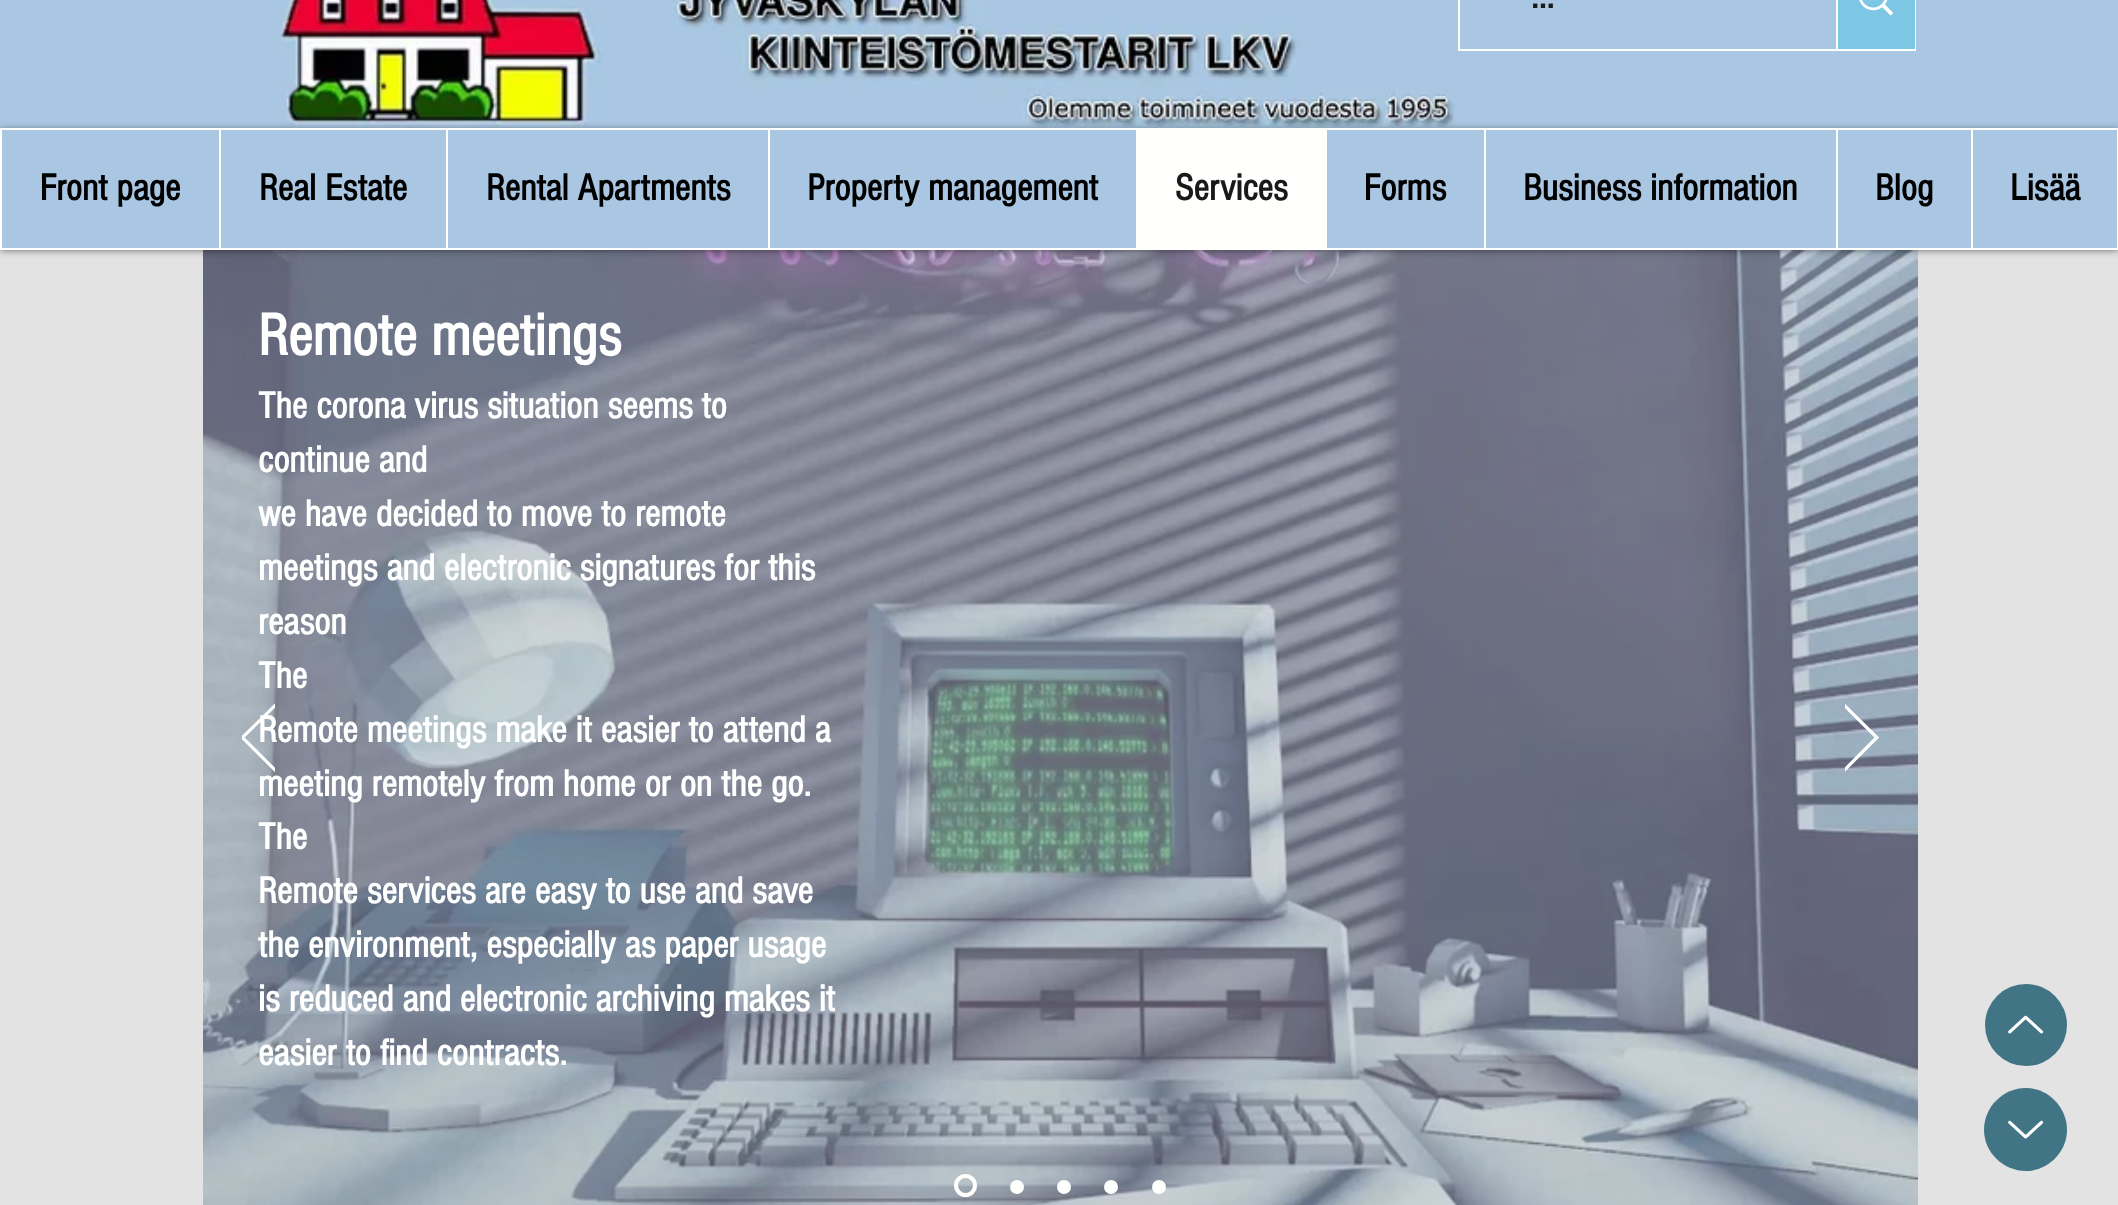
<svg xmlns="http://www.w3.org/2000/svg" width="2118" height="1205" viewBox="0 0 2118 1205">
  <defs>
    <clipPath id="clip1"><rect x="242" y="704" width="33" height="68"/></clipPath>
    <clipPath id="clip2"><rect x="1845" y="704" width="35" height="68"/></clipPath>
  </defs>
  <rect width="100%" height="100%" fill="rgb(227,227,227)"/>
  <rect x="0" y="0" width="2118" height="128" fill="rgb(169,199,226)"/>
  <image x="272" y="0" width="1183" height="128" href="pic1.png"/>
  <rect x="1459" y="-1" width="456" height="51" fill="none" stroke="rgb(255,255,255)" stroke-width="2"/>
  <text x="1531" y="8" font-family="'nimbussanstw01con'" font-size="38.5" font-weight="bold" fill="rgb(24,25,25)">...</text>
  <rect x="1838" y="0" width="77" height="49" fill="rgb(125,198,228)"/>
  <rect x="1836" y="0" width="2" height="49" fill="rgb(255,255,255)"/>
  <image x="1859" y="0" width="35" height="16" href="pic2.png"/>
  <rect x="203" y="250" width="1715" height="955" fill="rgb(169,199,226)"/>
  <image x="203" y="250" width="1715" height="955" href="pic3.png"/>
  <rect x="0" y="131" width="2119" height="118" fill="rgba(0,0,0,0.7)" filter="blur(4.5px)"/>
  <rect x="1" y="129" width="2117" height="120" fill="rgb(169,199,226)" stroke="rgb(255,255,254)" stroke-width="2"/>
  <text x="40" y="200" font-family="'nimbussanstw01con'" font-size="38.5" font-weight="bold" fill="rgb(0,0,0)">Front page</text>
  <rect x="219" y="130" width="2" height="119" fill="rgb(255,255,254)"/>
  <text x="259" y="200" font-family="'nimbussanstw01con'" font-size="38.5" font-weight="bold" fill="rgb(0,0,0)">Real Estate</text>
  <rect x="446" y="130" width="2" height="119" fill="rgb(255,255,254)"/>
  <text x="486" y="200" font-family="'nimbussanstw01con'" font-size="38.5" font-weight="bold" fill="rgb(0,0,0)">Rental Apartments</text>
  <rect x="768" y="130" width="2" height="119" fill="rgb(255,255,254)"/>
  <text x="807" y="200" font-family="'nimbussanstw01con'" font-size="38.5" font-weight="bold" fill="rgb(0,0,0)">Property management</text>
  <rect x="1136" y="130" width="189" height="118" fill="rgb(255,255,254)"/>
  <text x="1175" y="200" font-family="'nimbussanstw01con'" font-size="38.5" font-weight="bold" fill="rgb(24,25,25)">Services</text>
  <rect x="1325" y="130" width="2" height="119" fill="rgb(255,255,254)"/>
  <text x="1364" y="200" font-family="'nimbussanstw01con'" font-size="38.5" font-weight="bold" fill="rgb(0,0,0)">Forms</text>
  <rect x="1484" y="130" width="2" height="119" fill="rgb(255,255,254)"/>
  <text x="1523" y="200" font-family="'nimbussanstw01con'" font-size="38.5" font-weight="bold" fill="rgb(0,0,0)">Business information</text>
  <rect x="1836" y="130" width="2" height="119" fill="rgb(255,255,254)"/>
  <text x="1875" y="200" font-family="'nimbussanstw01con'" font-size="38.5" font-weight="bold" fill="rgb(0,0,0)">Blog</text>
  <rect x="1971" y="130" width="2" height="119" fill="rgb(255,255,254)"/>
  <text x="2010" y="200" font-family="'nimbussanstw01con'" font-size="38.5" font-weight="bold" fill="rgb(0,0,0)">Lisää</text>
  <text x="258" y="355" font-family="'nimbussanstw01con'" font-size="61.25" font-weight="bold" fill="rgb(255,255,255)">Remote meetings</text>
  <g font-family="'nimbussanstw01con'" font-size="38.5" font-weight="bold" fill="rgb(255,255,255)">
    <text>
      <tspan x="258" y="418">The corona virus situation seems to</tspan>
      <tspan x="258" y="472">continue and</tspan>
      <tspan x="258" y="526">we have decided to move to remote</tspan>
      <tspan x="258" y="580">meetings and electronic signatures for this</tspan>
      <tspan x="258" y="634">reason</tspan>
      <tspan x="258" y="688">The</tspan>
      <tspan x="258" y="742">Remote meetings make it easier to attend a</tspan>
      <tspan x="258" y="796">meeting remotely from home or on the go.</tspan>
      <tspan x="258" y="849">The</tspan>
      <tspan x="258" y="903">Remote services are easy to use and save</tspan>
      <tspan x="258" y="957">the environment, especially as paper usage</tspan>
      <tspan x="258" y="1011">is reduced and electronic archiving makes it</tspan>
      <tspan x="258" y="1065">easier to find contracts.</tspan>
    </text>
  </g>
  <g clip-path="url(#clip1)">
    <path d="M275.5 771.5L241.5 737.5L275.5 704L276.5 705L243.5 737.5L276.5 770.5Z" fill="none" stroke="rgb(255,255,255)" stroke-width="1.7"/>
  </g>
  <g clip-path="url(#clip2)">
    <path d="M1844 771.5L1878 737.5L1844 704L1843 705L1875.5 737.5L1843 770.5Z" fill="none" stroke="rgb(255,255,255)" stroke-width="1.7"/>
  </g>
  <circle cx="965.5" cy="1185.5" r="9.5" fill="none" stroke="rgb(255,255,254)" stroke-width="4"/>
  <circle cx="1017" cy="1187" r="7" fill="rgb(255,255,254)"/>
  <circle cx="1064" cy="1187" r="7" fill="rgb(255,255,254)"/>
  <circle cx="1111" cy="1187" r="7" fill="rgb(255,255,254)"/>
  <circle cx="1159" cy="1187" r="7" fill="rgb(255,255,254)"/>
  <circle cx="2026" cy="1025" r="41" fill="rgb(65,117,134)"/>
  <image x="2008" y="1015" width="36" height="19" href="pic4.png"/>
  <path d="M2026 1171C2003 1171 1984 1152 1984 1130C1984 1107 2003 1088 2026 1088C2048 1088 2067 1107 2067 1130C2067 1152 2048 1171 2026 1171Z" fill="rgb(65,117,134)"/>
  <image x="2008" y="1120" width="36" height="19" href="pic5.png"/>
</svg>
